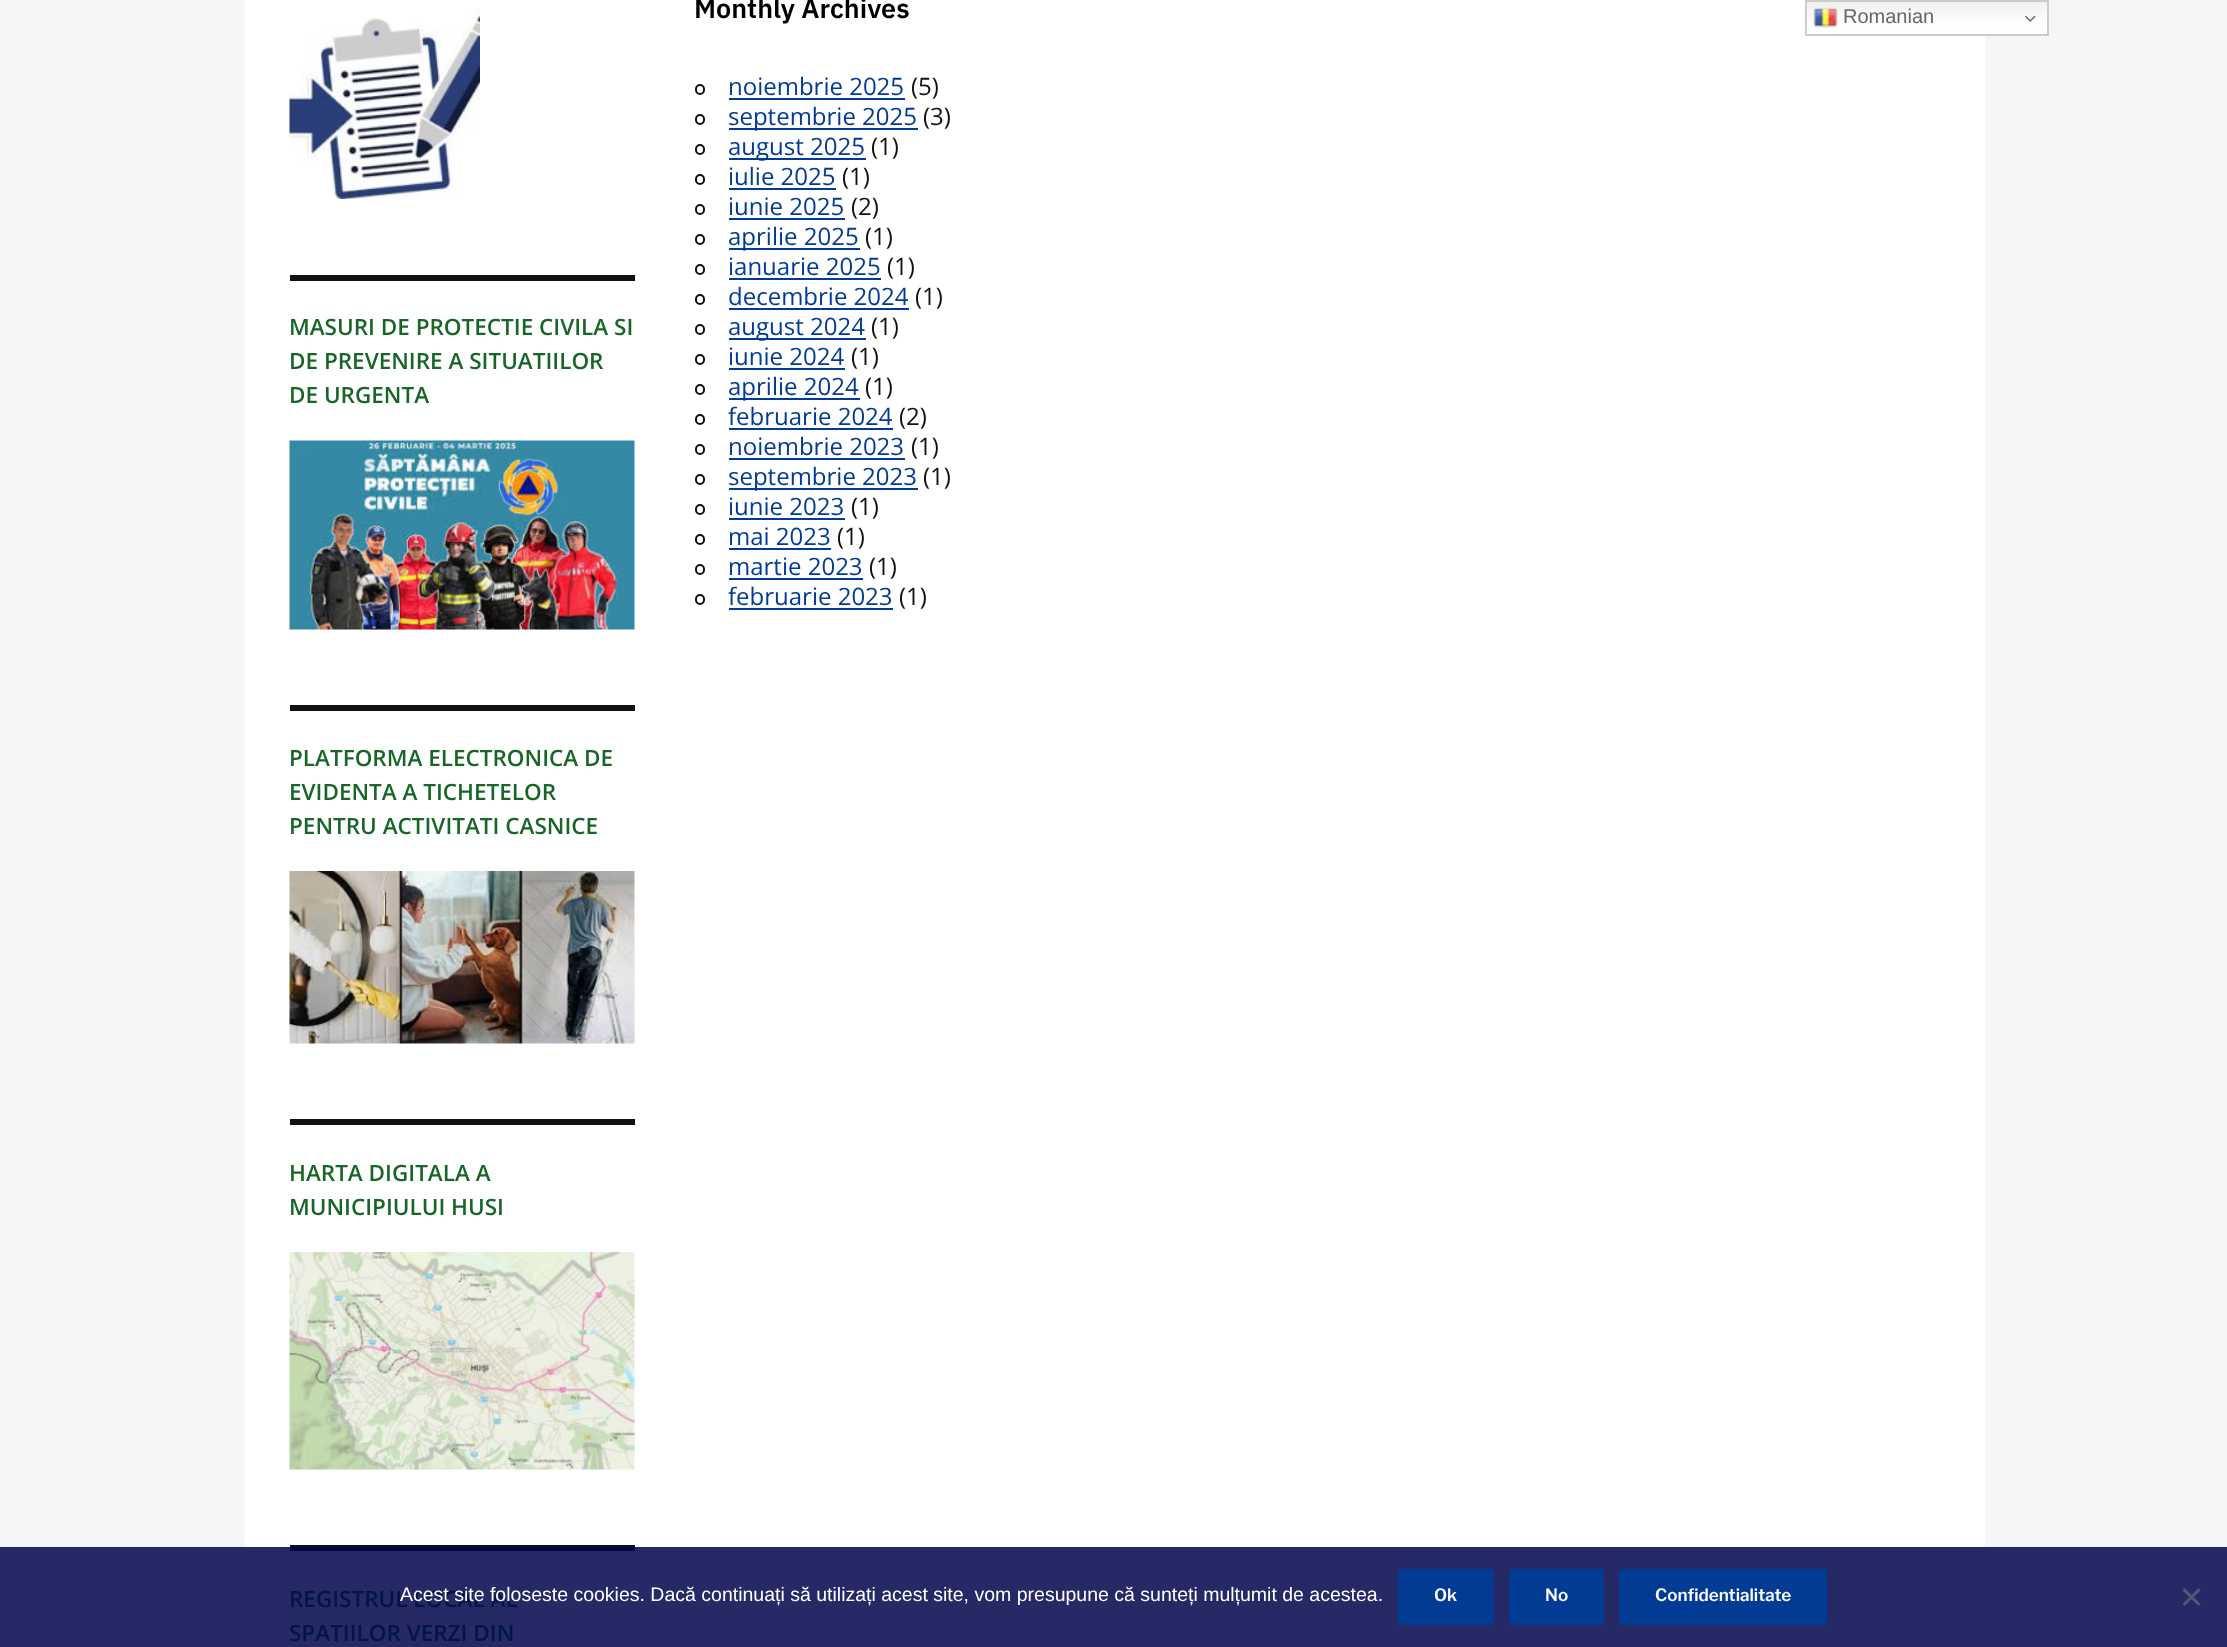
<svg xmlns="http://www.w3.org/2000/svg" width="2227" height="1647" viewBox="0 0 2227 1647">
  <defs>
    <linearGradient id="g1" gradientUnits="userSpaceOnUse" x1="1927" y1="0" x2="1927" y2="36"><stop offset="0" stop-color="rgb(239,239,239)"/><stop offset="0.7" stop-color="rgb(255,255,255)"/></linearGradient>
  </defs>
  <rect width="100%" height="100%" fill="rgb(244,246,248)"/>
  <rect x="0" y="1547" width="2227" height="100" fill="rgb(37,41,102)"/>
  <rect x="245" y="0" width="1740" height="1547" fill="rgb(255,255,255)"/>
  <image x="289" y="8" width="191" height="191" href="pic1.png"/>
  <rect x="290" y="275" width="345" height="6" fill="rgb(17,17,17)"/>
  <g font-family="Open Sans" font-size="22.5" font-weight="600" fill="rgb(23,102,39)">
    <text>
      <tspan x="289" y="335">MASURI DE PROTECTIE CIVILA SI</tspan>
      <tspan x="289" y="369">DE PREVENIRE A SITUATIILOR</tspan>
      <tspan x="289" y="403">DE URGENTA</tspan>
    </text>
  </g>
  <image x="289" y="440" width="346" height="190" href="pic2.png"/>
  <rect x="290" y="705" width="345" height="6" fill="rgb(17,17,17)"/>
  <g font-family="Open Sans" font-size="22.5" font-weight="600" fill="rgb(23,102,39)">
    <text>
      <tspan x="289" y="766">PLATFORMA ELECTRONICA DE</tspan>
      <tspan x="289" y="800">EVIDENTA A TICHETELOR</tspan>
      <tspan x="289" y="834">PENTRU ACTIVITATI CASNICE</tspan>
    </text>
  </g>
  <image x="289" y="871" width="346" height="173" href="pic3.png"/>
  <rect x="290" y="1119" width="345" height="6" fill="rgb(17,17,17)"/>
  <g font-family="Open Sans" font-size="22.5" font-weight="600" fill="rgb(23,102,39)">
    <text>
      <tspan x="289" y="1181">HARTA DIGITALA A</tspan>
      <tspan x="289" y="1215">MUNICIPIULUI HUSI</tspan>
    </text>
  </g>
  <image x="289" y="1252" width="346" height="218" href="pic4.png"/>
  <rect x="290" y="1545" width="345" height="2" fill="rgb(17,17,17)"/>
  <rect x="290" y="1547" width="345" height="4" fill="rgb(3,7,67)"/>
  <g font-family="Open Sans" font-size="22.5" font-weight="600" fill="rgb(3,20,70)">
    <text>
      <tspan x="289" y="1607">REGISTRUL LOCAL AL</tspan>
      <tspan x="289" y="1641">SPATIILOR VERZI DIN</tspan>
    </text>
  </g>
  <text x="694" y="18" font-family="IBM Plex Sans" font-size="27" font-weight="600" fill="rgb(0,0,0)">Monthly Archives</text>
  <rect x="696" y="85" width="8" height="9" rx="4" fill="none" stroke="rgb(17,17,17)" stroke-width="2"/>
  <text x="728" y="95" font-family="Open Sans" font-size="24" fill="rgb(1,59,147)">noiembrie 2025</text>
  <rect x="729" y="98" width="176" height="2" fill="rgb(1,59,147)"/>
  <text x="911" y="95" font-family="Open Sans" font-size="24" fill="rgb(17,17,17)">(5)</text>
  <rect x="696" y="115" width="8" height="9" rx="4" fill="none" stroke="rgb(17,17,17)" stroke-width="2"/>
  <rect x="729" y="128" width="189" height="2" fill="rgb(1,59,147)"/>
  <text x="728" y="125" font-family="Open Sans" font-size="24" fill="rgb(1,59,147)">septembrie 2025</text>
  <text x="923" y="125" font-family="Open Sans" font-size="24" fill="rgb(17,17,17)">(3)</text>
  <rect x="696" y="145" width="8" height="9" rx="4" fill="none" stroke="rgb(17,17,17)" stroke-width="2"/>
  <rect x="729" y="158" width="137" height="2" fill="rgb(1,59,147)"/>
  <text x="728" y="155" font-family="Open Sans" font-size="24" fill="rgb(1,59,147)">august 2025</text>
  <text x="871" y="155" font-family="Open Sans" font-size="24" fill="rgb(17,17,17)">(1)</text>
  <rect x="696" y="175" width="8" height="9" rx="4" fill="none" stroke="rgb(17,17,17)" stroke-width="2"/>
  <text x="728" y="185" font-family="Open Sans" font-size="24" fill="rgb(1,59,147)">iulie 2025</text>
  <rect x="729" y="188" width="107" height="2" fill="rgb(1,59,147)"/>
  <text x="842" y="185" font-family="Open Sans" font-size="24" fill="rgb(17,17,17)">(1)</text>
  <rect x="696" y="205" width="8" height="9" rx="4" fill="none" stroke="rgb(17,17,17)" stroke-width="2"/>
  <text x="728" y="215" font-family="Open Sans" font-size="24" fill="rgb(1,59,147)">iunie 2025</text>
  <rect x="729" y="218" width="116" height="2" fill="rgb(1,59,147)"/>
  <text x="851" y="215" font-family="Open Sans" font-size="24" fill="rgb(17,17,17)">(2)</text>
  <rect x="696" y="235" width="8" height="9" rx="4" fill="none" stroke="rgb(17,17,17)" stroke-width="2"/>
  <rect x="729" y="248" width="131" height="2" fill="rgb(1,59,147)"/>
  <text x="728" y="245" font-family="Open Sans" font-size="24" fill="rgb(1,59,147)">aprilie 2025</text>
  <text x="865" y="245" font-family="Open Sans" font-size="24" fill="rgb(17,17,17)">(1)</text>
  <rect x="696" y="265" width="8" height="9" rx="4" fill="none" stroke="rgb(17,17,17)" stroke-width="2"/>
  <text x="728" y="275" font-family="Open Sans" font-size="24" fill="rgb(1,59,147)">ianuarie 2025</text>
  <rect x="729" y="278" width="152" height="2" fill="rgb(1,59,147)"/>
  <text x="887" y="275" font-family="Open Sans" font-size="24" fill="rgb(17,17,17)">(1)</text>
  <rect x="696" y="295" width="8" height="9" rx="4" fill="none" stroke="rgb(17,17,17)" stroke-width="2"/>
  <text x="728" y="305" font-family="Open Sans" font-size="24" fill="rgb(1,59,147)">decembrie 2024</text>
  <rect x="729" y="308" width="180" height="2" fill="rgb(1,59,147)"/>
  <text x="915" y="305" font-family="Open Sans" font-size="24" fill="rgb(17,17,17)">(1)</text>
  <rect x="696" y="325" width="8" height="9" rx="4" fill="none" stroke="rgb(17,17,17)" stroke-width="2"/>
  <rect x="729" y="338" width="137" height="2" fill="rgb(1,59,147)"/>
  <text x="728" y="335" font-family="Open Sans" font-size="24" fill="rgb(1,59,147)">august 2024</text>
  <text x="871" y="335" font-family="Open Sans" font-size="24" fill="rgb(17,17,17)">(1)</text>
  <rect x="696" y="355" width="8" height="9" rx="4" fill="none" stroke="rgb(17,17,17)" stroke-width="2"/>
  <text x="728" y="365" font-family="Open Sans" font-size="24" fill="rgb(1,59,147)">iunie 2024</text>
  <rect x="729" y="368" width="116" height="2" fill="rgb(1,59,147)"/>
  <text x="851" y="365" font-family="Open Sans" font-size="24" fill="rgb(17,17,17)">(1)</text>
  <rect x="696" y="385" width="8" height="9" rx="4" fill="none" stroke="rgb(17,17,17)" stroke-width="2"/>
  <rect x="729" y="398" width="131" height="2" fill="rgb(1,59,147)"/>
  <text x="728" y="395" font-family="Open Sans" font-size="24" fill="rgb(1,59,147)">aprilie 2024</text>
  <text x="865" y="395" font-family="Open Sans" font-size="24" fill="rgb(17,17,17)">(1)</text>
  <rect x="696" y="415" width="8" height="9" rx="4" fill="none" stroke="rgb(17,17,17)" stroke-width="2"/>
  <text x="728" y="425" font-family="Open Sans" font-size="24" fill="rgb(1,59,147)">februarie 2024</text>
  <rect x="729" y="428" width="164" height="2" fill="rgb(1,59,147)"/>
  <text x="899" y="425" font-family="Open Sans" font-size="24" fill="rgb(17,17,17)">(2)</text>
  <rect x="696" y="445" width="8" height="9" rx="4" fill="none" stroke="rgb(17,17,17)" stroke-width="2"/>
  <text x="728" y="455" font-family="Open Sans" font-size="24" fill="rgb(1,59,147)">noiembrie 2023</text>
  <rect x="729" y="458" width="176" height="2" fill="rgb(1,59,147)"/>
  <text x="911" y="455" font-family="Open Sans" font-size="24" fill="rgb(17,17,17)">(1)</text>
  <rect x="696" y="475" width="8" height="9" rx="4" fill="none" stroke="rgb(17,17,17)" stroke-width="2"/>
  <rect x="729" y="488" width="189" height="2" fill="rgb(1,59,147)"/>
  <text x="728" y="485" font-family="Open Sans" font-size="24" fill="rgb(1,59,147)">septembrie 2023</text>
  <text x="923" y="485" font-family="Open Sans" font-size="24" fill="rgb(17,17,17)">(1)</text>
  <rect x="696" y="505" width="8" height="9" rx="4" fill="none" stroke="rgb(17,17,17)" stroke-width="2"/>
  <text x="728" y="515" font-family="Open Sans" font-size="24" fill="rgb(1,59,147)">iunie 2023</text>
  <rect x="729" y="518" width="116" height="2" fill="rgb(1,59,147)"/>
  <text x="851" y="515" font-family="Open Sans" font-size="24" fill="rgb(17,17,17)">(1)</text>
  <rect x="696" y="535" width="8" height="9" rx="4" fill="none" stroke="rgb(17,17,17)" stroke-width="2"/>
  <text x="728" y="545" font-family="Open Sans" font-size="24" fill="rgb(1,59,147)">mai 2023</text>
  <rect x="729" y="548" width="102" height="2" fill="rgb(1,59,147)"/>
  <text x="837" y="545" font-family="Open Sans" font-size="24" fill="rgb(17,17,17)">(1)</text>
  <rect x="696" y="565" width="8" height="9" rx="4" fill="none" stroke="rgb(17,17,17)" stroke-width="2"/>
  <text x="728" y="575" font-family="Open Sans" font-size="24" fill="rgb(1,59,147)">martie 2023</text>
  <rect x="729" y="578" width="134" height="2" fill="rgb(1,59,147)"/>
  <text x="869" y="575" font-family="Open Sans" font-size="24" fill="rgb(17,17,17)">(1)</text>
  <rect x="696" y="595" width="8" height="9" rx="4" fill="none" stroke="rgb(17,17,17)" stroke-width="2"/>
  <text x="728" y="605" font-family="Open Sans" font-size="24" fill="rgb(1,59,147)">februarie 2023</text>
  <rect x="729" y="608" width="164" height="2" fill="rgb(1,59,147)"/>
  <text x="899" y="605" font-family="Open Sans" font-size="24" fill="rgb(17,17,17)">(1)</text>
  <rect x="1807" y="2" width="240" height="32" fill="url(#g1)"/>
  <rect x="1806" y="1" width="242" height="34" fill="none" stroke="rgb(204,204,204)" stroke-width="2"/>
  <image x="1813" y="7" width="25" height="21" href="pic5.png"/>
  <text x="1843" y="23" font-family="Liberation Sans" font-size="20" fill="rgb(102,102,102)">Romanian</text>
  <image x="2025" y="15" width="11" height="7" href="pic6.png"/>
  <text x="400" y="1601" font-family="Liberation Sans" font-size="19.5" fill="rgb(255,255,255)">Acest site foloseste cookies. Dacă continuați să utilizați acest site, vom presupune că sunteți mulțumit de acestea.</text>
  <rect x="1398" y="1569" width="96" height="56" rx="3" fill="rgb(1,59,147)"/>
  <text x="1434" y="1601" font-family="Libre Franklin" font-size="17" font-weight="600" fill="rgb(255,255,255)">Ok</text>
  <rect x="1509" y="1569" width="95" height="56" rx="3" fill="rgb(1,59,147)"/>
  <text x="1545" y="1601" font-family="Libre Franklin" font-size="17" font-weight="600" fill="rgb(255,255,255)">No</text>
  <rect x="1619" y="1569" width="208" height="56" rx="3" fill="rgb(1,59,147)"/>
  <text x="1655" y="1601" font-family="Libre Franklin" font-size="17" font-weight="600" fill="rgb(255,255,255)">Confidentialitate</text>
  <path d="M2198.5 1588L2200.5 1590.5L2184.5 1606L2182.5 1604Z" fill="rgb(82,85,115)"/>
  <path d="M2182.5 1590.5L2184.5 1588L2200.5 1604L2198.5 1606Z" fill="rgb(82,85,115)"/>
</svg>
